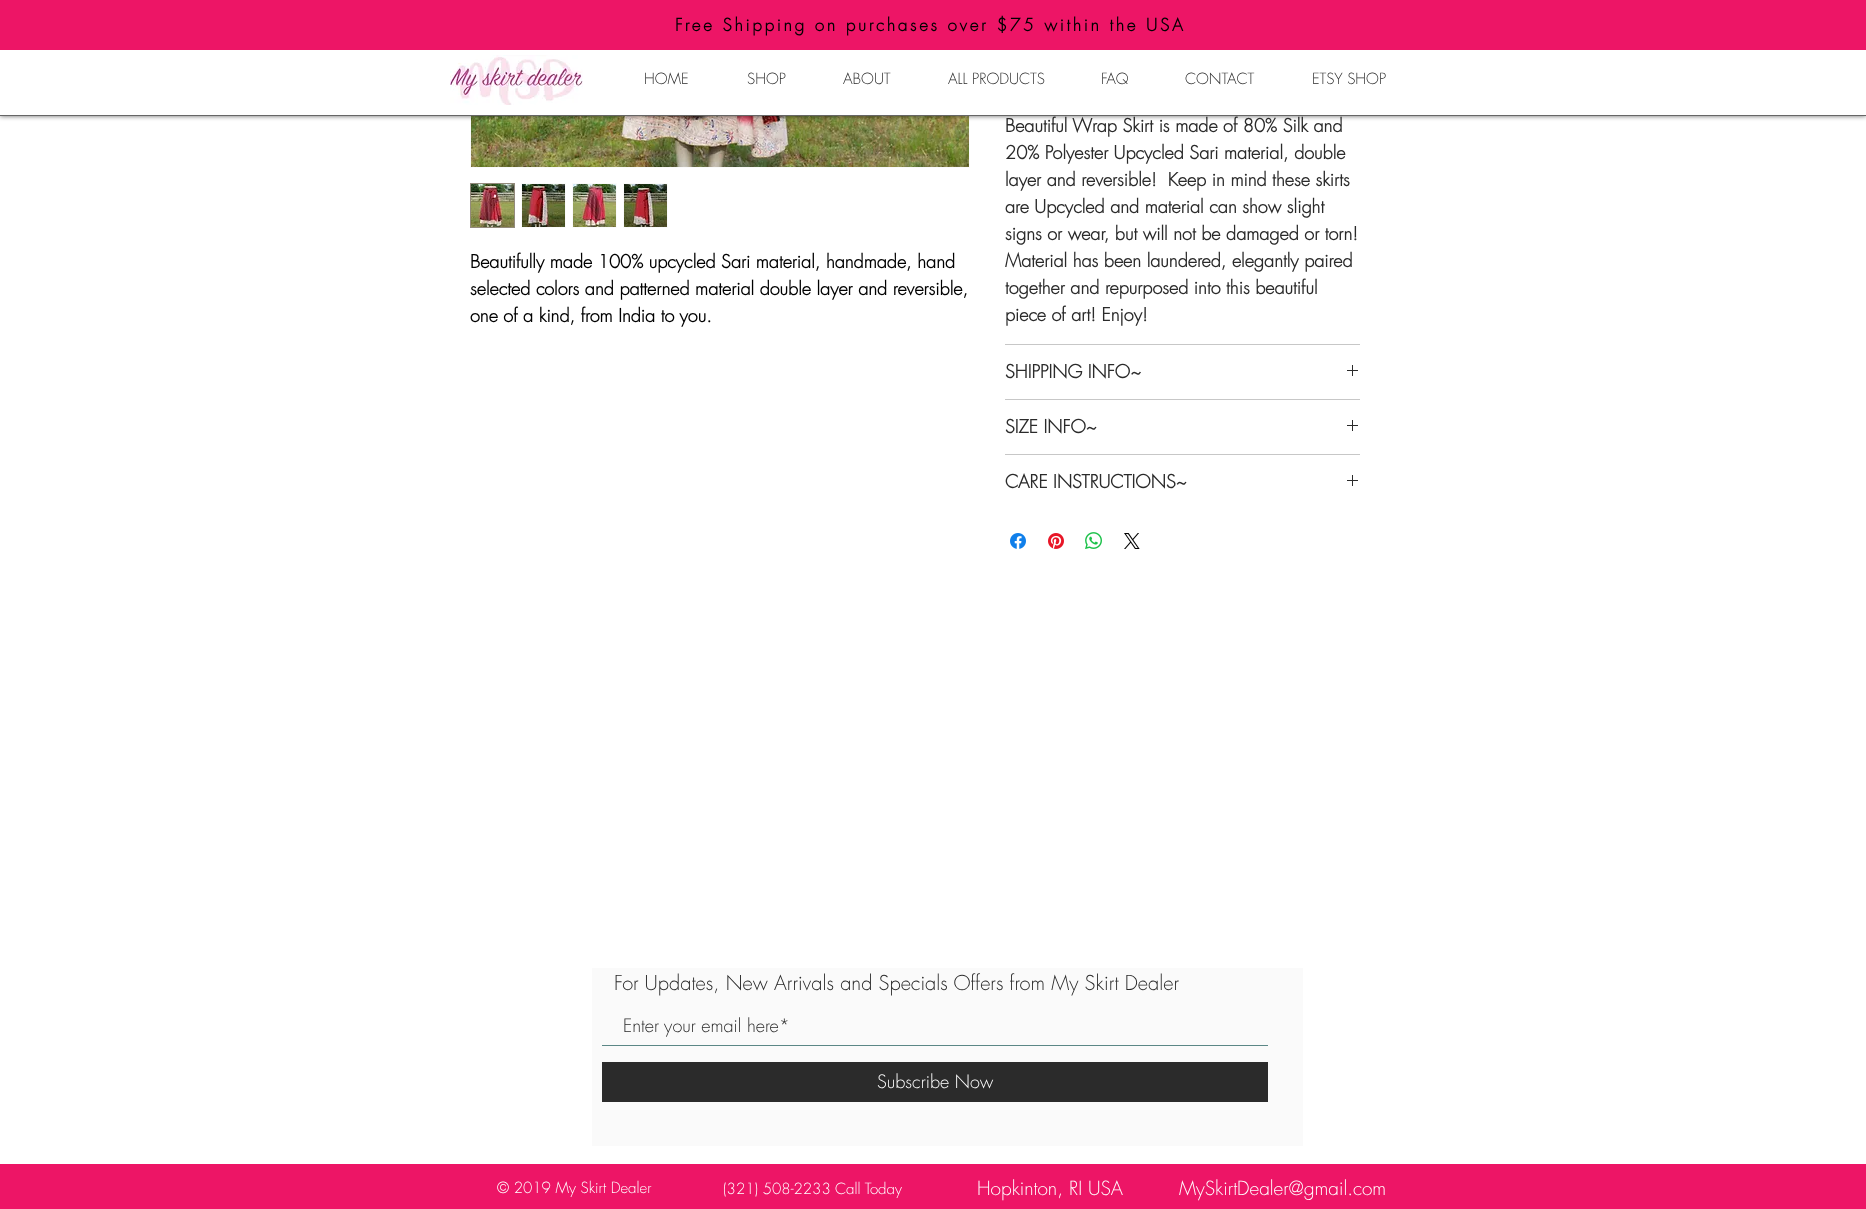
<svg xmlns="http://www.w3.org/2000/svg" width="1866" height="1209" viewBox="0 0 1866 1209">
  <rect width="100%" height="100%" fill="rgb(255,255,255)"/>
  <rect x="470.5" y="-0.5" width="499" height="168" fill="none" stroke="rgb(250,250,250)"/>
  <image x="471" y="116" width="498" height="51" href="pic2.png"/>
  <rect x="0" y="0" width="1866" height="116" fill="rgba(0,0,0,0.6)" filter="blur(2.5px)"/>
  <rect x="0" y="50" width="1866" height="65" fill="rgb(255,255,255)"/>
  <rect x="0" y="115" width="1866" height="1" fill="rgb(102,102,102)"/>
  <rect x="0" y="0" width="1866" height="50" fill="rgb(237,21,102)"/>
  <text x="675" y="31" font-family="futura" font-size="17" font-weight="bold" letter-spacing="2.72" fill="rgb(0,0,0)">Free Shipping on purchases over $75 within the USA</text>
  <image x="450" y="55" width="133" height="50" href="pic1.png"/>
  <g font-family="futura" font-size="15" font-weight="300" fill="rgb(43,43,43)">
    <text x="644" y="84">HOME</text>
    <text x="747" y="84">SHOP</text>
    <text x="843" y="84">ABOUT</text>
    <text x="948" y="84">ALL PRODUCTS</text>
    <text x="1101" y="84">FAQ</text>
    <text x="1185" y="84">CONTACT</text>
    <text x="1312" y="84">ETSY SHOP</text>
  </g>
  <rect x="470.5" y="183.5" width="44" height="44" fill="none" stroke="rgb(147,138,124)"/>
  <image x="471" y="184" width="43" height="43" href="pic3.png"/>
  <rect x="521" y="183" width="45" height="45" fill="rgb(250,250,250)"/>
  <image x="522" y="184" width="43" height="43" href="pic4.png"/>
  <rect x="572" y="183" width="45" height="45" fill="rgb(250,250,250)"/>
  <image x="573" y="184" width="43" height="43" href="pic5.png"/>
  <rect x="623" y="183" width="45" height="45" fill="rgb(250,250,250)"/>
  <image x="624" y="184" width="43" height="43" href="pic6.png"/>
  <g font-family="futura" font-size="18" font-weight="bold" fill="rgb(0,0,0)">
    <text>
      <tspan x="470" y="268">Beautifully made 100% upcycled Sari material, handmade, hand</tspan>
      <tspan x="470" y="295">selected colors and patterned material double layer and reversible,</tspan>
      <tspan x="470" y="322">one of a kind, from India to you.</tspan>
    </text>
  </g>
  <rect x="1005" y="344" width="355" height="1" fill="rgb(199,199,199)"/>
  <g font-family="futura" font-size="18" font-weight="bold" fill="rgb(43,43,43)">
    <text xml:space="preserve"><tspan x="1005" y="132">Beautiful Wrap Skirt is made of 80% Silk and</tspan><tspan x="1005" y="159">20% Polyester Upcycled Sari material, double</tspan><tspan x="1005" y="186">layer and reversible!  Keep in mind these skirts</tspan><tspan x="1005" y="213">are Upcycled and material can show slight</tspan><tspan x="1005" y="240">signs or wear, but will not be damaged or torn!</tspan><tspan x="1005" y="267">Material has been laundered, elegantly paired</tspan><tspan x="1005" y="294">together and repurposed into this beautiful</tspan><tspan x="1005" y="321">piece of art! Enjoy!</tspan></text>
  </g>
  <rect x="1005" y="399" width="355" height="1" fill="rgb(199,199,199)"/>
  <text x="1005" y="378" font-family="futura" font-size="18" font-weight="bold" fill="rgb(43,43,43)">SHIPPING INFO~</text>
  <image x="1347" y="365" width="11" height="11" href="pic7.png"/>
  <rect x="1005" y="454" width="355" height="1" fill="rgb(199,199,199)"/>
  <text x="1005" y="433" font-family="futura" font-size="18" font-weight="bold" fill="rgb(43,43,43)">SIZE INFO~</text>
  <image x="1347" y="420" width="11" height="11" href="pic7.png"/>
  <text x="1005" y="488" font-family="futura" font-size="18" font-weight="bold" fill="rgb(43,43,43)">CARE INSTRUCTIONS~</text>
  <image x="1347" y="475" width="11" height="11" href="pic7.png"/>
  <image x="1010" y="533" width="16" height="16" href="pic8.png"/>
  <image x="1048" y="533" width="16" height="16" href="pic9.png"/>
  <image x="1085" y="532" width="17" height="17" href="pic10.png"/>
  <image x="1124" y="533" width="16" height="16" href="pic11.png"/>
  <rect x="592" y="968" width="711" height="178" fill="rgb(250,250,250)"/>
  <text x="614" y="990" font-family="futura" font-size="20" font-weight="300" fill="rgb(43,43,43)">For Updates, New Arrivals and Specials Offers from My Skirt Dealer</text>
  <rect x="602" y="1045" width="666" height="1" fill="rgb(91,135,134)"/>
  <text x="623" y="1032" font-family="futura" font-size="18" font-weight="300" fill="rgb(43,43,43)">Enter your email here*</text>
  <rect x="602" y="1062" width="666" height="40" fill="rgb(43,43,43)"/>
  <text x="877" y="1088" font-family="futura" font-size="18" font-weight="300" fill="rgb(255,255,255)">Subscribe Now</text>
  <rect x="0" y="1164" width="1866" height="45" fill="rgb(237,21,102)"/>
  <g font-family="futura" font-size="15" font-weight="300" fill="rgb(255,255,255)">
    <text x="497" y="1193">© 2019 My Skirt Dealer</text>
    <text x="723" y="1194">(321) 508-2233 Call Today</text>
  </g>
  <g font-family="futura" font-size="19" font-weight="300" fill="rgb(255,255,255)">
    <text x="977" y="1195">Hopkinton, RI USA</text>
    <text x="1179" y="1195">MySkirtDealer@gmail.com</text>
  </g>
</svg>
